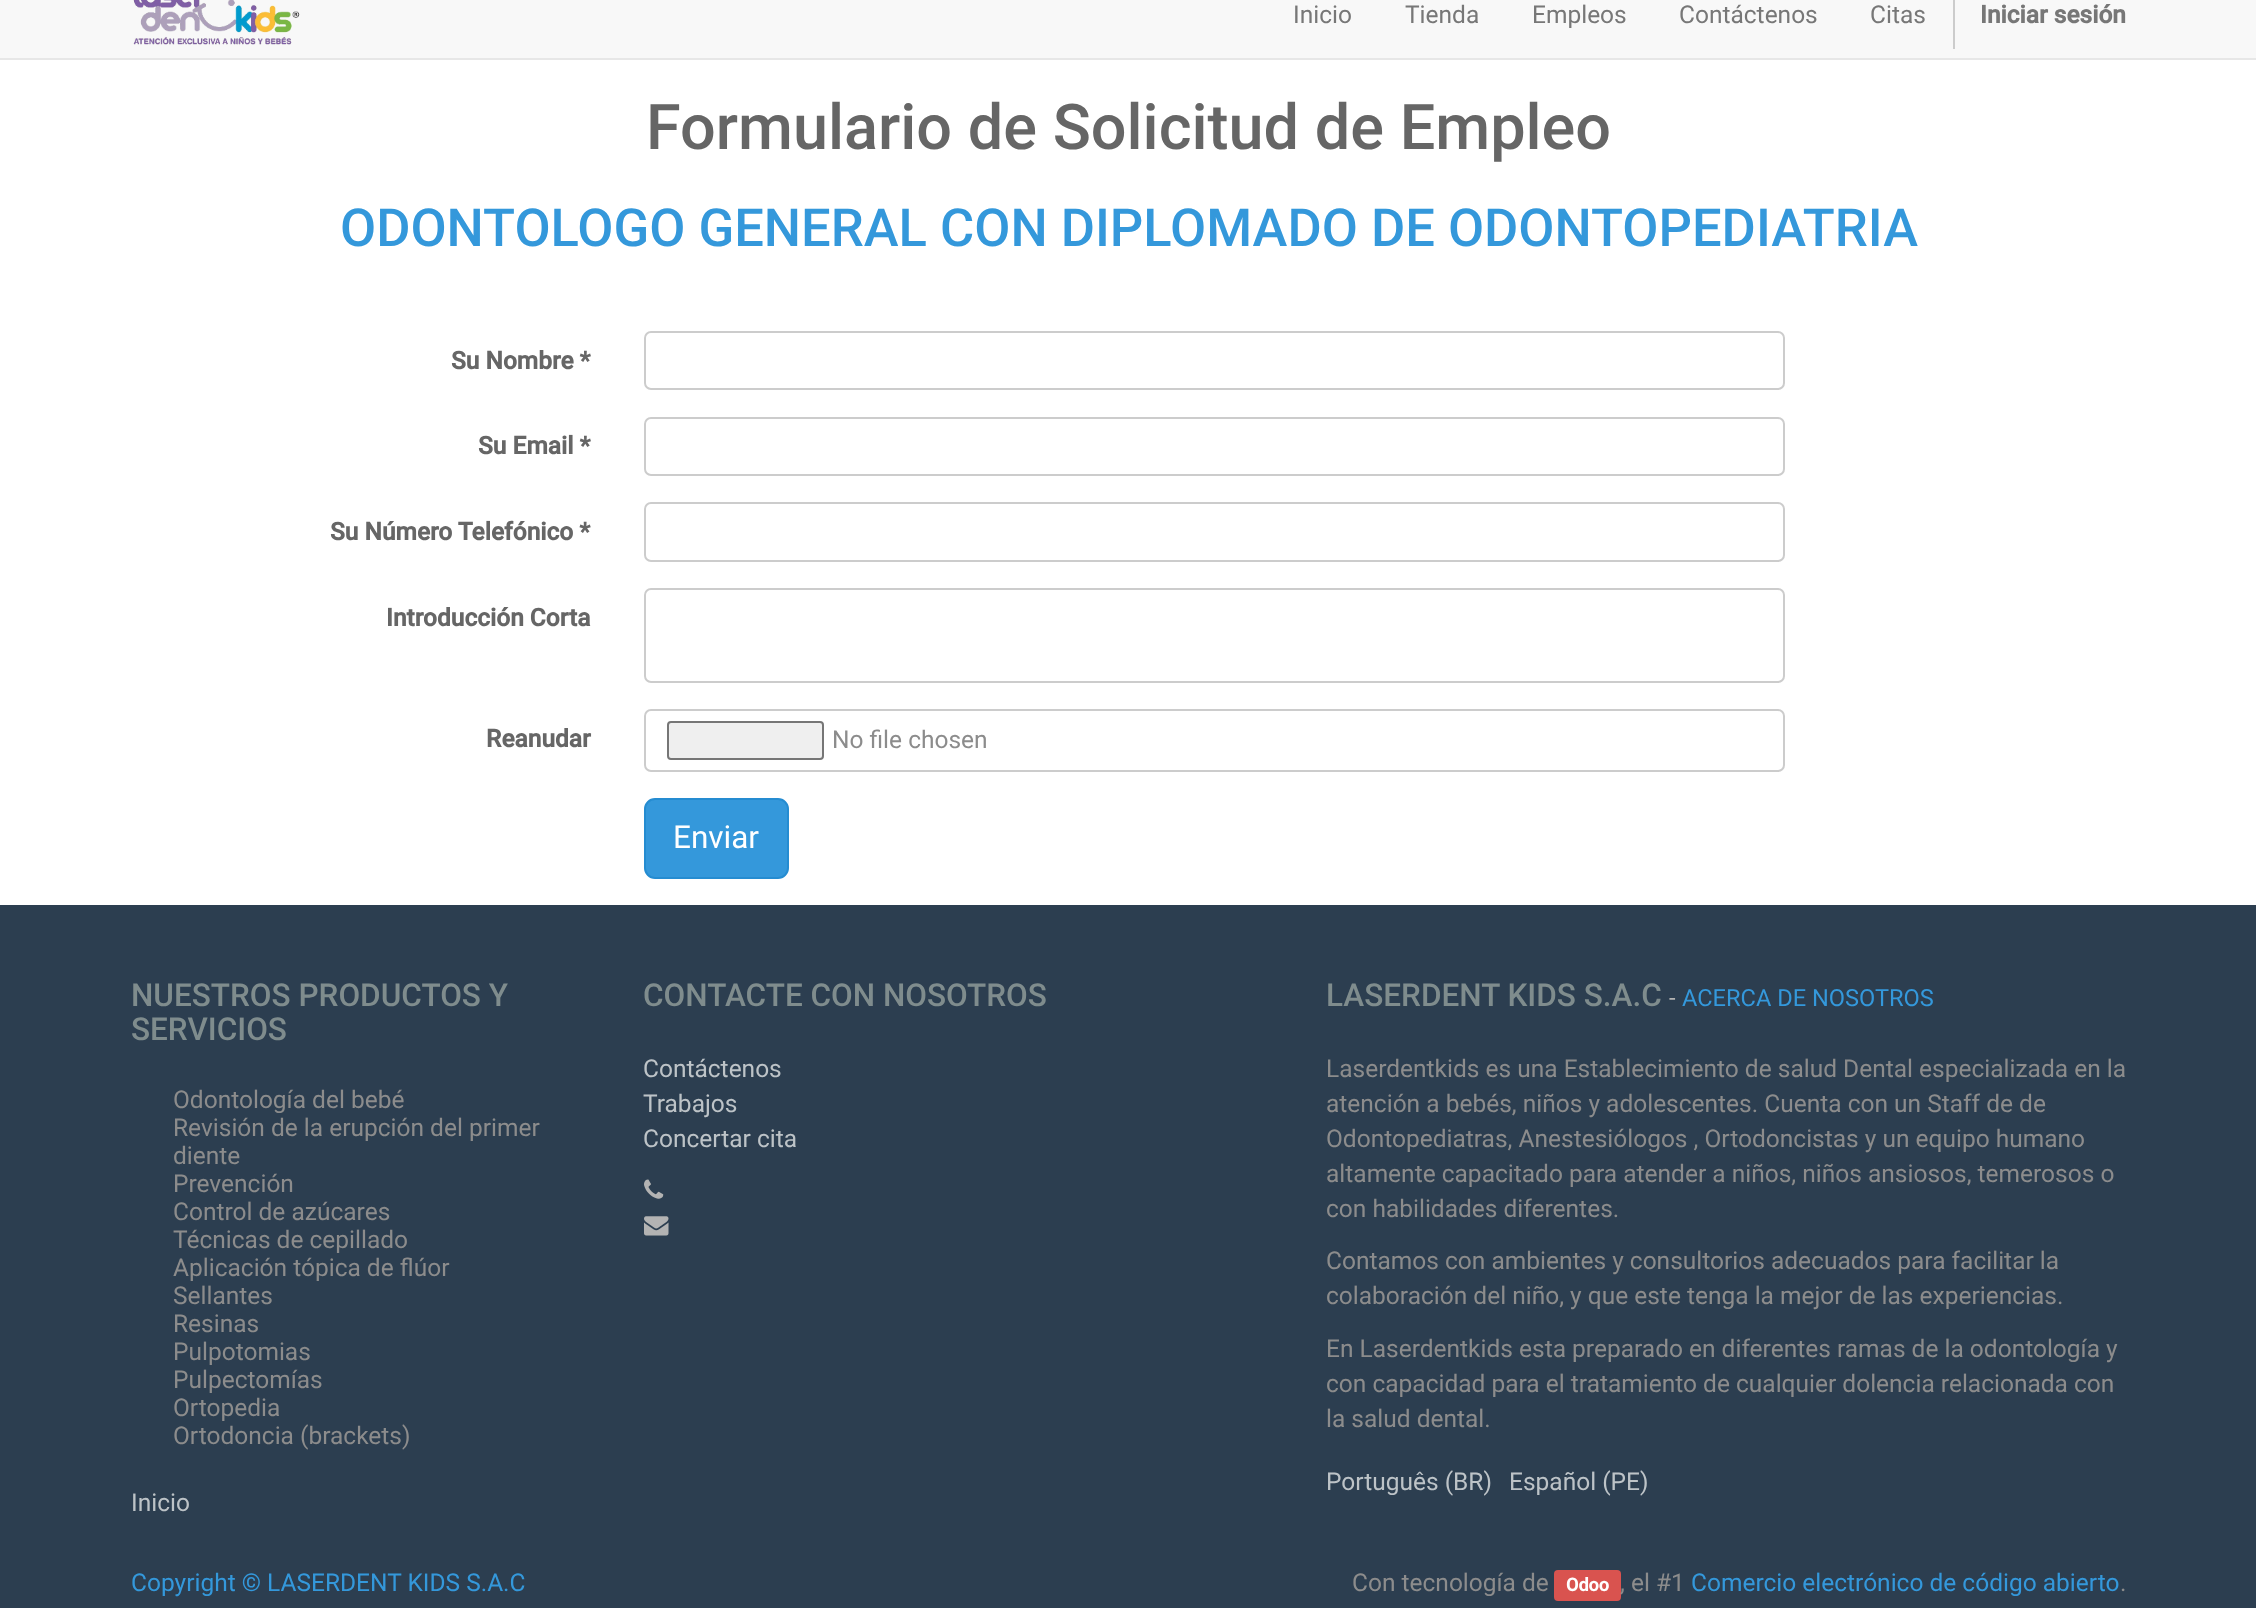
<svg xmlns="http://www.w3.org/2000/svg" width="2256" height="1608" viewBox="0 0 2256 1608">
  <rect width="100%" height="100%" fill="rgb(255,255,255)"/>
  <rect x="0" y="0" width="2256" height="58" fill="rgb(248,248,248)"/>
  <rect x="0" y="58" width="2256" height="2" fill="rgb(231,231,231)"/>
  <image x="133" y="0" width="167" height="45" href="pic1.png"/>
  <g font-family="Roboto" font-size="24.5" fill="rgb(119,119,119)">
    <text x="1293" y="23">Inicio</text>
    <text x="1405" y="23">Tienda</text>
    <text x="1532" y="23">Empleos</text>
    <text x="1679" y="23">Contáctenos</text>
    <text x="1870" y="23">Citas</text>
  </g>
  <rect x="1953" y="0" width="2" height="49" fill="rgb(204,204,204)"/>
  <text x="1980" y="23" font-family="Roboto" font-size="24.5" font-weight="bold" fill="rgb(119,119,119)">Iniciar sesión</text>
  <text x="646" y="149" font-family="Roboto" font-size="63" font-weight="500" fill="rgb(102,102,102)">Formulario de Solicitud de Empleo</text>
  <text x="340" y="246" font-family="Roboto" font-size="52.5" font-weight="500" fill="rgb(52,152,219)">ODONTOLOGO GENERAL CON DIPLOMADO DE ODONTOPEDIATRIA</text>
  <text x="451" y="369" font-family="Roboto" font-size="24.5" font-weight="bold" fill="rgb(102,102,102)">Su Nombre *</text>
  <rect x="645" y="332" width="1139" height="57" rx="6" fill="none" stroke="rgb(204,204,204)" stroke-width="2"/>
  <text x="478" y="454" font-family="Roboto" font-size="24.5" font-weight="bold" fill="rgb(102,102,102)">Su Email *</text>
  <rect x="645" y="418" width="1139" height="57" rx="6" fill="none" stroke="rgb(204,204,204)" stroke-width="2"/>
  <text x="330" y="540" font-family="Roboto" font-size="24.5" font-weight="bold" fill="rgb(102,102,102)">Su Número Telefónico *</text>
  <rect x="645" y="503" width="1139" height="58" rx="6" fill="none" stroke="rgb(204,204,204)" stroke-width="2"/>
  <text x="386" y="626" font-family="Roboto" font-size="24.5" font-weight="bold" fill="rgb(102,102,102)">Introducción Corta</text>
  <rect x="645" y="589" width="1139" height="93" rx="6" fill="none" stroke="rgb(204,204,204)" stroke-width="2"/>
  <text x="486" y="747" font-family="Roboto" font-size="24.5" font-weight="bold" fill="rgb(102,102,102)">Reanudar</text>
  <rect x="645" y="710" width="1139" height="61" rx="6" fill="none" stroke="rgb(204,204,204)" stroke-width="2"/>
  <rect x="668" y="722" width="155" height="37" rx="3" fill="rgb(239,239,239)" stroke="rgb(118,118,118)" stroke-width="2"/>
  <text x="832" y="748" font-family="Roboto" font-size="24.5" fill="rgb(140,140,140)">No file chosen</text>
  <rect x="645" y="799" width="143" height="79" rx="10" fill="rgb(52,152,219)" stroke="rgb(37,140,209)" stroke-width="2"/>
  <text x="673" y="848" font-family="Roboto" font-size="31.5" fill="rgb(255,255,255)">Enviar</text>
  <rect x="0" y="905" width="2256" height="703" fill="rgb(44,62,80)"/>
  <g font-family="Roboto" font-size="31.5" font-weight="500" fill="rgb(127,140,141)">
    <text>
      <tspan x="131" y="1006">NUESTROS PRODUCTOS Y</tspan>
      <tspan x="131" y="1040">SERVICIOS</tspan>
    </text>
  </g>
  <g font-family="Roboto" font-size="24.5" fill="rgb(140,140,140)">
    <text>
      <tspan x="173" y="1108">Odontología del bebé</tspan>
      <tspan x="173" y="1136">Revisión de la erupción del primer</tspan>
      <tspan x="173" y="1164">diente</tspan>
      <tspan x="173" y="1192">Prevención</tspan>
      <tspan x="173" y="1220">Control de azúcares</tspan>
      <tspan x="173" y="1248">Técnicas de cepillado</tspan>
      <tspan x="173" y="1276">Aplicación tópica de flúor</tspan>
      <tspan x="173" y="1304">Sellantes</tspan>
      <tspan x="173" y="1332">Resinas</tspan>
      <tspan x="173" y="1360">Pulpotomias</tspan>
      <tspan x="173" y="1388">Pulpectomías</tspan>
      <tspan x="173" y="1416">Ortopedia</tspan>
      <tspan x="173" y="1444">Ortodoncia (brackets)</tspan>
    </text>
  </g>
  <text x="131" y="1511" font-family="Roboto" font-size="24.5" fill="rgb(189,195,199)">Inicio</text>
  <text x="643" y="1006" font-family="Roboto" font-size="31.5" font-weight="500" fill="rgb(127,140,141)">CONTACTE CON NOSOTROS</text>
  <g font-family="Roboto" font-size="24.5" fill="rgb(189,195,199)">
    <text>
      <tspan x="643" y="1077">Contáctenos</tspan>
      <tspan x="643" y="1112">Trabajos</tspan>
      <tspan x="643" y="1147">Concertar cita</tspan>
    </text>
  </g>
  <image x="644" y="1179" width="20" height="20" href="pic2.png"/>
  <image x="644" y="1216" width="25" height="20" href="pic3.png"/>
  <text x="1326" y="1006" font-family="Roboto" font-size="31.5" font-weight="500" fill="rgb(127,140,141)">LASERDENT KIDS S.A.C</text>
  <text x="1669" y="1006" font-family="Roboto" font-size="23.6" fill="rgb(179,179,179)">-</text>
  <text x="1682" y="1006" font-family="Roboto" font-size="23.6" fill="rgb(52,152,219)">ACERCA DE NOSOTROS</text>
  <g font-family="Roboto" font-size="24.5" fill="rgb(140,140,140)">
    <text>
      <tspan x="1326" y="1077">Laserdentkids es una Establecimiento de salud Dental especializada en la</tspan>
      <tspan x="1326" y="1112">atención a bebés, niños y adolescentes. Cuenta con un Staff de de</tspan>
      <tspan x="1326" y="1147">Odontopediatras, Anestesiólogos , Ortodoncistas y un equipo humano</tspan>
      <tspan x="1326" y="1182">altamente capacitado para atender a niños, niños ansiosos, temerosos o</tspan>
      <tspan x="1326" y="1217">con habilidades diferentes.</tspan>
    </text>
    <text>
      <tspan x="1326" y="1269">Contamos con ambientes y consultorios adecuados para facilitar la</tspan>
      <tspan x="1326" y="1304">colaboración del niño, y que este tenga la mejor de las experiencias.</tspan>
    </text>
    <text>
      <tspan x="1326" y="1357">En Laserdentkids esta preparado en diferentes ramas de la odontología y</tspan>
      <tspan x="1326" y="1392">con capacidad para el tratamiento de cualquier dolencia relacionada con</tspan>
      <tspan x="1326" y="1427">la salud dental.</tspan>
    </text>
  </g>
  <g font-family="Roboto" font-size="24.5" fill="rgb(189,195,199)">
    <text x="1326" y="1490">Português (BR)</text>
    <text x="1509" y="1490">Español (PE)</text>
  </g>
  <text x="131" y="1591" font-family="Roboto" font-size="24.5" fill="rgb(52,152,219)">Copyright © LASERDENT KIDS S.A.C</text>
  <text x="1352" y="1591" font-family="Roboto" font-size="24.5" fill="rgb(140,140,140)">Con tecnología de</text>
  <rect x="1554" y="1570" width="67" height="31" rx="4" fill="rgb(217,83,79)"/>
  <text x="1566" y="1591" font-family="Roboto" font-size="18" font-weight="bold" fill="rgb(255,255,255)">Odoo</text>
  <text x="1620" y="1591" font-family="Roboto" font-size="24.5" fill="rgb(140,140,140)">, el #1</text>
  <text x="1691" y="1591" font-family="Roboto" font-size="24.5" fill="rgb(52,152,219)">Comercio electrónico de código abierto</text>
  <text x="2120" y="1591" font-family="Roboto" font-size="24.5" fill="rgb(140,140,140)">.</text>
</svg>
